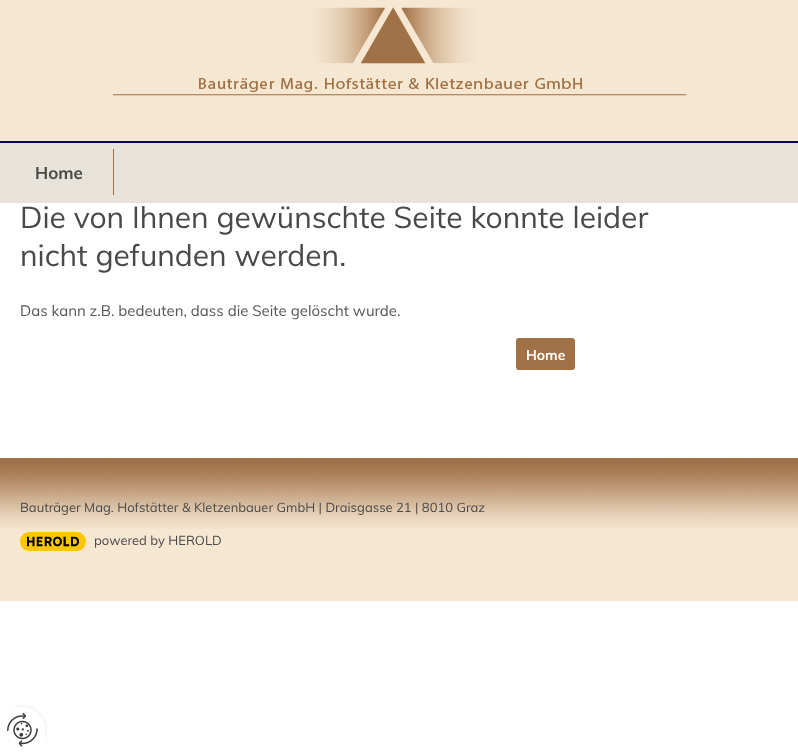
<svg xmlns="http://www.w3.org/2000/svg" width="798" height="752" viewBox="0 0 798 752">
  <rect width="100%" height="100%" fill="rgb(255,255,255)"/>
  <rect x="0" y="0" width="798" height="141" fill="rgb(246,231,210)"/>
  <image x="113" y="7" width="574" height="89" href="pic1.png"/>
  <rect x="0" y="141" width="798" height="2" fill="rgb(8,6,81)"/>
  <rect x="0" y="143" width="798" height="60" fill="rgb(231,226,218)"/>
  <rect x="113" y="149" width="1" height="46" fill="rgb(160,112,71)"/>
  <text x="35" y="179" font-family="Muli" font-size="17" font-weight="bold" fill="rgb(73,73,72)">Home</text>
  <g font-family="Muli" font-size="30" fill="rgb(73,73,72)">
    <text>
      <tspan x="20" y="228">Die von Ihnen gewünschte Seite konnte leider</tspan>
      <tspan x="20" y="266">nicht gefunden werden.</tspan>
    </text>
  </g>
  <text x="20" y="316" font-family="Muli" font-size="15" fill="rgb(85,85,85)">Das kann z.B. bedeuten, dass die Seite gelöscht wurde.</text>
  <rect x="516" y="338" width="59" height="32" rx="3" fill="rgb(160,112,71)"/>
  <text x="526" y="360" font-family="Muli" font-size="14" font-weight="bold" fill="rgb(255,255,255)">Home</text>
  <rect x="0" y="529" width="798" height="72" fill="rgb(246,231,210)"/>
  <image x="0" y="458" width="798" height="71" href="pic2.png"/>
  <text x="20" y="512" font-family="Muli" font-size="13" fill="rgb(73,73,72)">Bauträger Mag. Hofstätter &amp; Kletzenbauer GmbH | Draisgasse 21 | 8010 Graz</text>
  <image x="20" y="532" width="66" height="19" href="pic3.png"/>
  <text x="94" y="545" font-family="Muli" font-size="13" fill="rgb(73,73,72)">powered by HEROLD</text>
  <rect x="0" y="707" width="45" height="45" rx="22.5" fill="rgba(0,0,0,0.1)" filter="blur(2.5px)"/>
  <path d="M2 707H22.5C35 707 45 717 45 729.5V750C45 751 44 752 43 752H2C1 752 0 751 0 750V709C0 708 1 707 2 707Z" fill="rgb(255,255,255)"/>
  <image x="7" y="713" width="31" height="34" href="pic4.png"/>
</svg>
